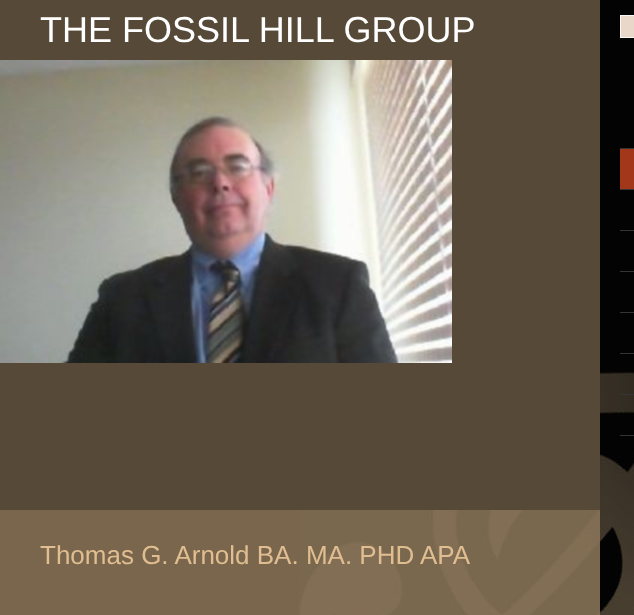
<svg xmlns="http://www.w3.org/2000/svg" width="634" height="615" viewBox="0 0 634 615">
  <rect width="100%" height="100%" fill="rgb(86,73,55)"/>
  <rect x="600" y="0" width="34" height="372" fill="rgb(3,3,3)"/>
  <text x="40" y="42" font-family="Liberation Sans" font-size="36" fill="rgb(255,255,255)">THE FOSSIL HILL GROUP</text>
  <rect x="620.5" y="15.5" width="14" height="22" fill="rgb(233,216,201)" stroke="rgb(249,245,242)"/>
  <image x="0" y="60" width="452" height="303" href="pic1.png"/>
  <image x="600" y="372" width="34" height="138" href="pic2.png"/>
  <rect x="620" y="148" width="14" height="1" fill="rgb(52,52,52)"/>
  <rect x="620" y="149" width="14" height="40" fill="rgb(163,55,26)"/>
  <rect x="620" y="189" width="14" height="1" fill="rgb(52,52,52)"/>
  <rect x="620" y="230" width="14" height="1" fill="rgb(52,52,52)"/>
  <rect x="620" y="271" width="14" height="1" fill="rgb(52,52,52)"/>
  <rect x="620" y="312" width="14" height="1" fill="rgb(52,52,52)"/>
  <rect x="620" y="353" width="14" height="1" fill="rgb(52,52,52)"/>
  <rect x="620" y="394" width="14" height="1" fill="rgb(52,52,52)"/>
  <rect x="620" y="435" width="14" height="1" fill="rgb(52,52,52)"/>
  <rect x="0" y="510" width="299" height="105" fill="rgb(121,102,77)"/>
  <image x="299" y="510" width="301" height="105" href="pic3.png"/>
  <text x="40" y="564" font-family="Liberation Sans" font-size="26" fill="rgb(224,190,145)">Thomas G. Arnold BA. MA. PHD APA</text>
  <image x="600" y="510" width="34" height="105" href="pic4.png"/>
</svg>
